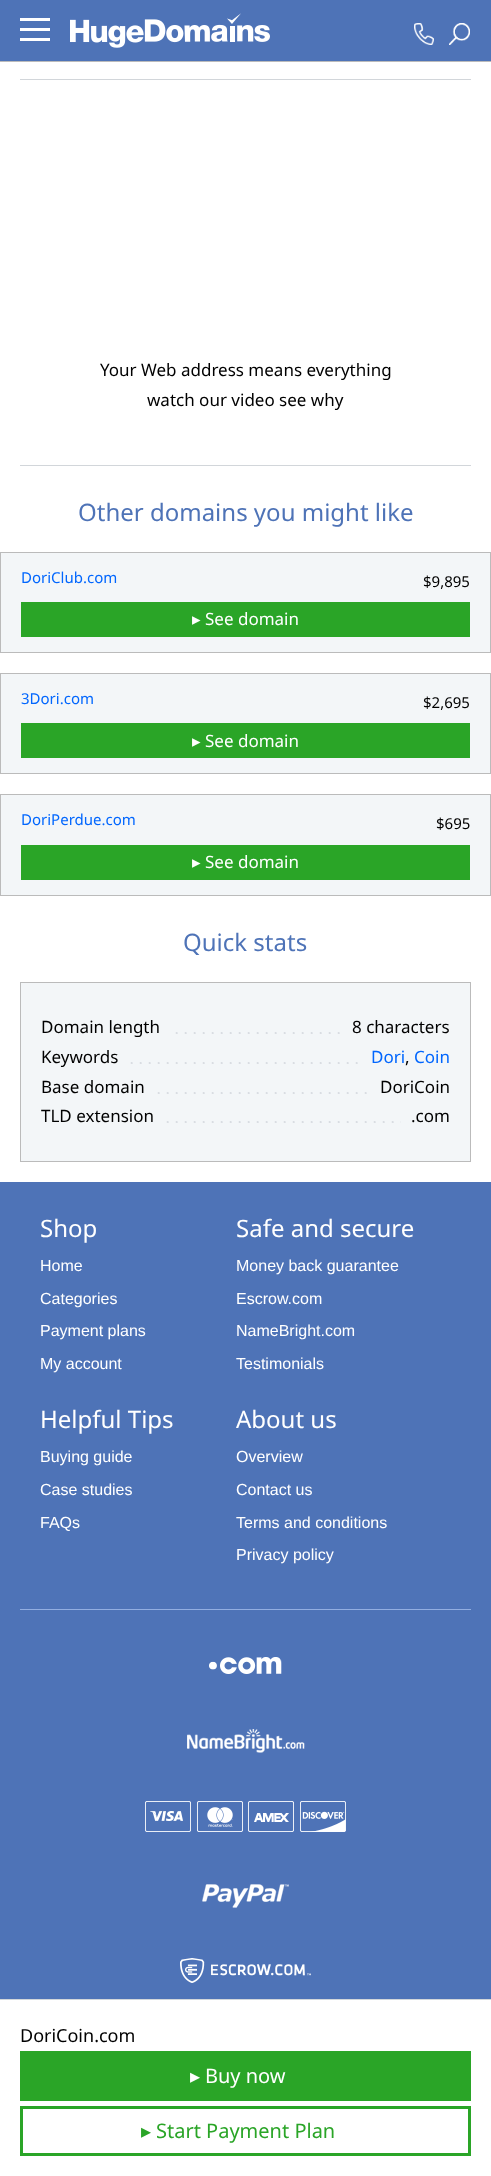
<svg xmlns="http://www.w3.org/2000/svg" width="491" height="2176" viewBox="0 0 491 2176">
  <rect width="100%" height="100%" fill="rgb(255,255,255)"/>
  <rect x="0" y="0" width="491" height="61" fill="rgb(78,115,183)"/>
  <rect x="0" y="61" width="491" height="1" fill="rgb(187,187,187)"/>
  <rect x="20" y="28" width="30" height="3" fill="rgb(255,255,255)"/>
  <rect x="20" y="18" width="30" height="3" fill="rgb(255,255,255)"/>
  <rect x="20" y="38" width="30" height="3" fill="rgb(255,255,255)"/>
  <image x="70" y="13" width="200" height="35" href="pic1.png"/>
  <image x="414" y="23" width="20" height="22" href="pic2.png"/>
  <image x="449" y="23" width="21" height="22" href="pic3.png"/>
  <rect x="20" y="79" width="451" height="1" fill="rgb(210,214,218)"/>
  <rect x="20" y="465" width="451" height="1" fill="rgb(210,214,218)"/>
  <g font-family="Noto Sans" font-size="17" fill="rgb(0,0,0)">
    <text x="100" y="376">Your Web address means everything</text>
    <text x="147" y="406">watch our video see why</text>
  </g>
  <text x="78" y="521" font-family="Noto Sans" font-size="24" fill="rgb(78,115,183)">Other domains you might like</text>
  <rect x="0.5" y="552.5" width="490" height="100" fill="rgb(243,246,248)" stroke="rgb(187,187,187)"/>
  <text x="21" y="583" font-family="Noto Sans" font-size="15" fill="rgb(1,102,254)">DoriClub.com</text>
  <text x="423" y="587" font-family="Noto Sans" font-size="15" fill="rgb(0,0,0)">$9,895</text>
  <rect x="21" y="602" width="449" height="35" fill="rgb(42,165,39)"/>
  <text x="192" y="625" font-family="DejaVu Sans" font-size="17" fill="rgb(255,255,255)">▸</text>
  <text x="205" y="625" font-family="Noto Sans" font-size="17" fill="rgb(255,255,255)">See domain</text>
  <rect x="0.5" y="673.5" width="490" height="100" fill="rgb(243,246,248)" stroke="rgb(187,187,187)"/>
  <text x="21" y="704" font-family="Noto Sans" font-size="15" fill="rgb(1,102,254)">3Dori.com</text>
  <text x="423" y="708" font-family="Noto Sans" font-size="15" fill="rgb(0,0,0)">$2,695</text>
  <rect x="21" y="723" width="449" height="35" fill="rgb(42,165,39)"/>
  <text x="192" y="747" font-family="DejaVu Sans" font-size="17" fill="rgb(255,255,255)">▸</text>
  <text x="205" y="747" font-family="Noto Sans" font-size="17" fill="rgb(255,255,255)">See domain</text>
  <rect x="0.5" y="794.5" width="490" height="101" fill="rgb(243,246,248)" stroke="rgb(187,187,187)"/>
  <text x="21" y="825" font-family="Noto Sans" font-size="15" fill="rgb(1,102,254)">DoriPerdue.com</text>
  <text x="436" y="829" font-family="Noto Sans" font-size="15" fill="rgb(0,0,0)">$695</text>
  <rect x="21" y="845" width="449" height="35" fill="rgb(42,165,39)"/>
  <text x="192" y="868" font-family="DejaVu Sans" font-size="17" fill="rgb(255,255,255)">▸</text>
  <text x="205" y="868" font-family="Noto Sans" font-size="17" fill="rgb(255,255,255)">See domain</text>
  <text x="183" y="951" font-family="Noto Sans" font-size="24" fill="rgb(78,115,183)">Quick stats</text>
  <rect x="20.5" y="982.5" width="450" height="179" fill="rgb(243,246,248)" stroke="rgb(187,187,187)"/>
  <image x="175" y="1032" width="165" height="2" href="pic4.png"/>
  <g font-family="Noto Sans" font-size="17" fill="rgb(0,0,0)">
    <text x="41" y="1033">Domain length</text>
    <text x="352" y="1033">8 characters</text>
  </g>
  <image x="130" y="1062" width="228" height="2" href="pic5.png"/>
  <text x="41" y="1063" font-family="Noto Sans" font-size="17" fill="rgb(0,0,0)">Keywords</text>
  <text x="371" y="1063" font-family="Noto Sans" font-size="17" fill="rgb(1,102,254)">Dori</text>
  <text x="405" y="1063" font-family="Noto Sans" font-size="17" fill="rgb(0,0,0)">,</text>
  <text x="414" y="1063" font-family="Noto Sans" font-size="17" fill="rgb(1,102,254)">Coin</text>
  <image x="157" y="1092" width="210" height="2" href="pic6.png"/>
  <g font-family="Noto Sans" font-size="17" fill="rgb(0,0,0)">
    <text x="41" y="1093">Base domain</text>
    <text x="380" y="1093">DoriCoin</text>
  </g>
  <image x="166" y="1121" width="235" height="2" href="pic7.png"/>
  <g font-family="Noto Sans" font-size="17" fill="rgb(0,0,0)">
    <text x="41" y="1122">TLD extension</text>
    <text x="411" y="1122">.com</text>
  </g>
  <rect x="0" y="1999" width="491" height="1" fill="rgb(210,214,218)"/>
  <text x="20" y="2042" font-family="Noto Sans" font-size="18" fill="rgb(0,0,0)">DoriCoin.com</text>
  <rect x="20" y="2051" width="451" height="50" fill="rgb(42,165,39)"/>
  <text x="190" y="2083" font-family="DejaVu Sans" font-size="20" fill="rgb(255,255,255)">▸</text>
  <text x="205" y="2083" font-family="Noto Sans" font-size="20" fill="rgb(255,255,255)">Buy now</text>
  <rect x="21.5" y="2107.5" width="448" height="47" fill="none" stroke="rgb(42,165,39)" stroke-width="3"/>
  <text x="141" y="2138" font-family="DejaVu Sans" font-size="20" fill="rgb(42,165,39)">▸</text>
  <text x="156" y="2138" font-family="Noto Sans" font-size="20" fill="rgb(42,165,39)">Start Payment Plan</text>
  <rect x="0" y="1182" width="491" height="817" fill="rgb(78,115,183)"/>
  <rect x="20" y="1609" width="451" height="1" fill="rgb(146,174,225)"/>
  <text x="40" y="1237" font-family="Noto Sans" font-size="24" fill="rgb(255,255,255)">Shop</text>
  <g font-family="Liberation Sans" font-size="16" fill="rgb(255,255,255)">
    <text x="40" y="1271">Home</text>
    <text x="40" y="1304">Categories</text>
    <text x="40" y="1336">Payment plans</text>
    <text x="40" y="1369">My account</text>
  </g>
  <text x="236" y="1237" font-family="Noto Sans" font-size="24" fill="rgb(255,255,255)">Safe and secure</text>
  <g font-family="Liberation Sans" font-size="16" fill="rgb(255,255,255)">
    <text x="236" y="1271">Money back guarantee</text>
    <text x="236" y="1304">Escrow.com</text>
    <text x="236" y="1336">NameBright.com</text>
    <text x="236" y="1369">Testimonials</text>
  </g>
  <text x="40" y="1428" font-family="Noto Sans" font-size="24" fill="rgb(255,255,255)">Helpful Tips</text>
  <g font-family="Liberation Sans" font-size="16" fill="rgb(255,255,255)">
    <text x="40" y="1462">Buying guide</text>
    <text x="40" y="1495">Case studies</text>
    <text x="40" y="1528">FAQs</text>
  </g>
  <text x="236" y="1428" font-family="Noto Sans" font-size="24" fill="rgb(255,255,255)">About us</text>
  <g font-family="Liberation Sans" font-size="16" fill="rgb(255,255,255)">
    <text x="236" y="1462">Overview</text>
    <text x="236" y="1495">Contact us</text>
    <text x="236" y="1528">Terms and conditions</text>
    <text x="236" y="1560">Privacy policy</text>
  </g>
  <image x="209" y="1657" width="73" height="17" href="pic8.png"/>
  <image x="187" y="1729" width="118" height="24" href="pic9.png"/>
  <image x="145" y="1801" width="201" height="31" href="pic10.png"/>
  <image x="202" y="1884" width="87" height="24" href="pic11.png"/>
  <image x="180" y="1958" width="131" height="25" href="pic12.png"/>
</svg>
